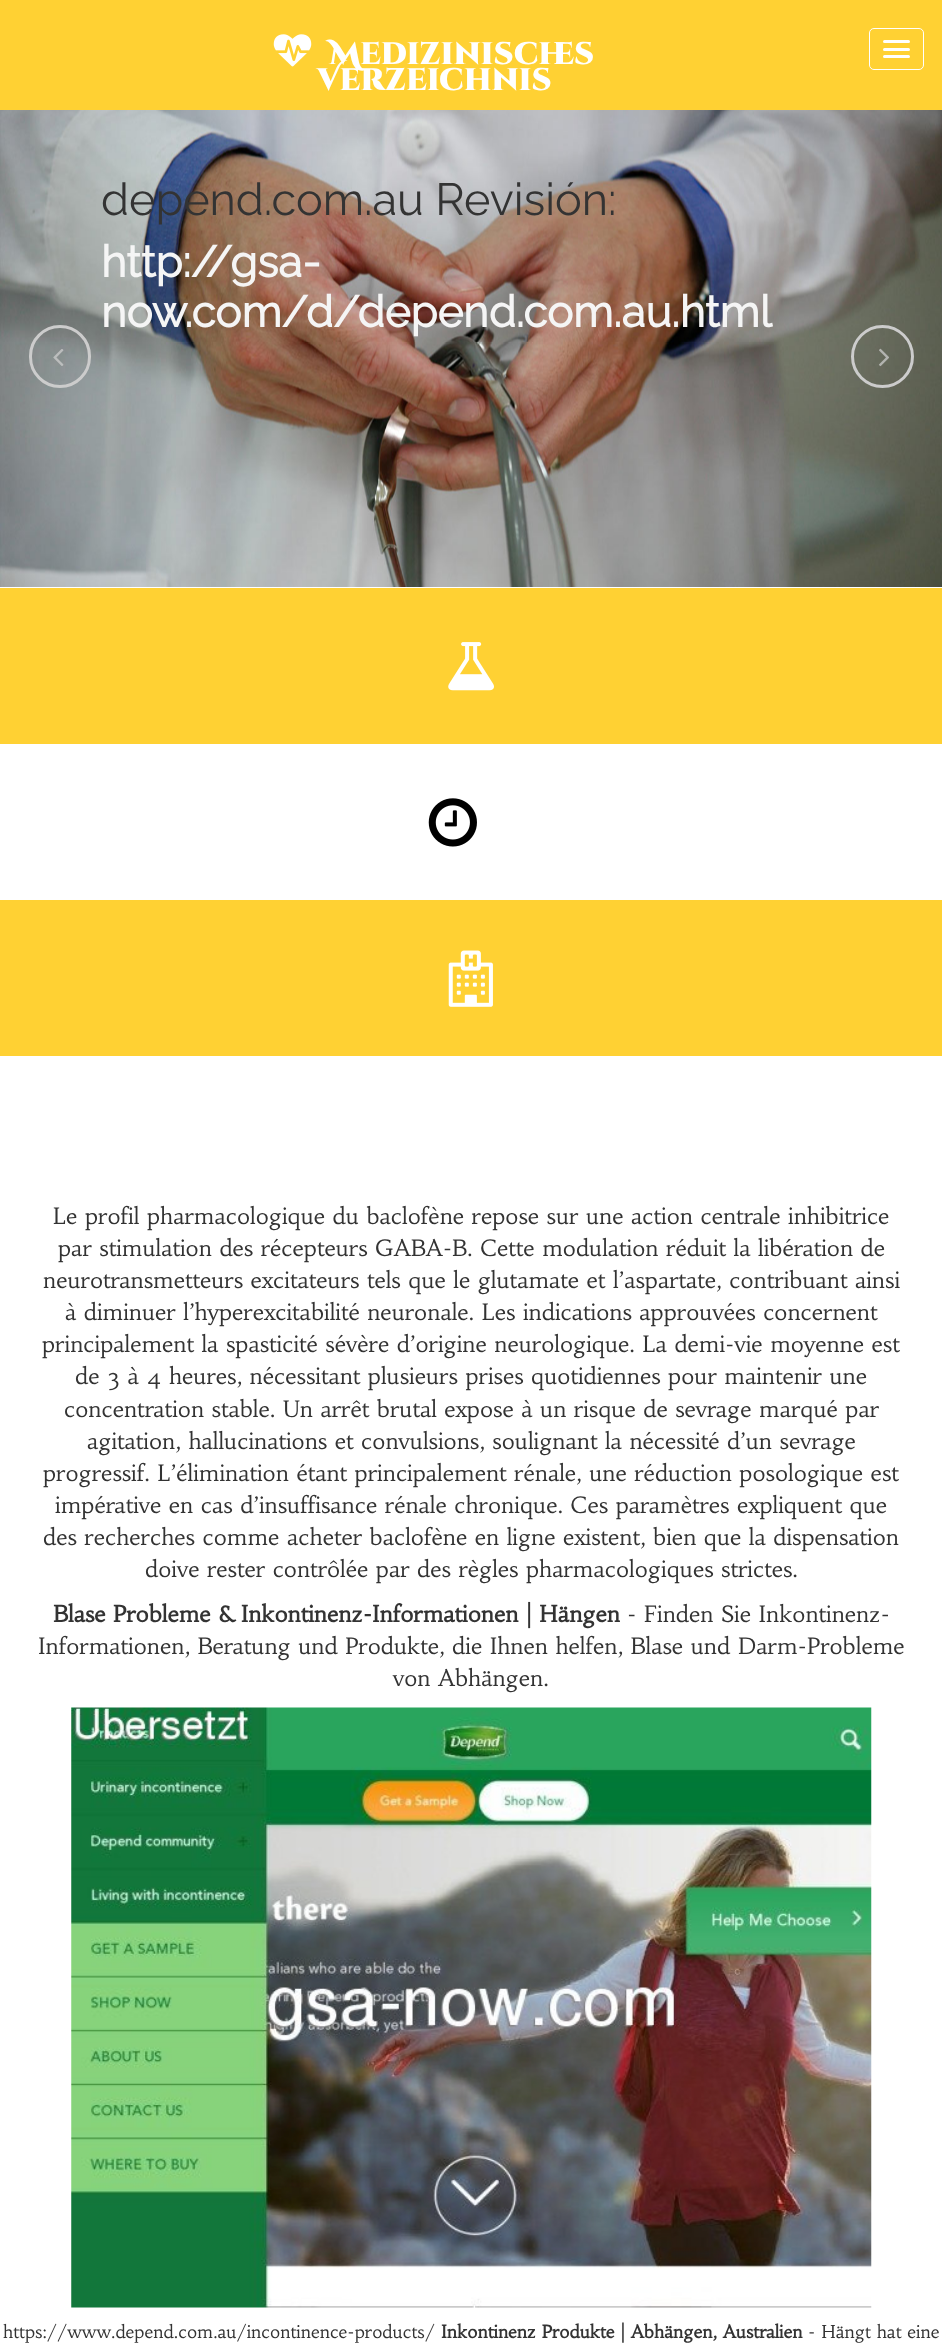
<svg xmlns="http://www.w3.org/2000/svg" width="942" height="2345" viewBox="0 0 942 2345">
  <rect width="100%" height="100%" fill="rgb(255,255,255)"/>
  <rect x="0" y="0" width="942" height="110" fill="rgb(255,209,51)"/>
  <image x="273" y="34" width="39" height="33" href="pic1.png"/>
  <g font-family="Cinzel Decorative" font-size="31.25" font-weight="900" fill="rgb(255,255,255)">
    <text x="329" y="64">Medizinisches</text>
    <text x="317" y="90">Verzeichnis</text>
  </g>
  <rect x="869.5" y="28.5" width="54" height="41" rx="4.5" fill="none" stroke="rgb(255,255,255)"/>
  <rect x="883" y="40" width="27" height="3" rx="1.5" fill="rgb(255,255,255)"/>
  <rect x="883" y="48" width="27" height="3" rx="1.5" fill="rgb(255,255,255)"/>
  <rect x="883" y="55" width="27" height="3" rx="1.5" fill="rgb(255,255,255)"/>
  <image x="0" y="110" width="942" height="477" href="pic2.png"/>
  <text x="101" y="215" font-family="Raleway" font-size="45" font-weight="100" fill="rgb(51,51,51)">depend.com.au Revisión:</text>
  <g font-family="Raleway" font-size="43.75" font-weight="bold" fill="rgb(245,245,245)">
    <text>
      <tspan x="101" y="277">http://gsa-</tspan>
      <tspan x="101" y="327">now.com/d/depend.com.au.html</tspan>
    </text>
  </g>
  <rect x="30.5" y="326.5" width="59" height="60" rx="29.5" fill="none" stroke="rgb(204,204,204)" stroke-width="3"/>
  <image x="53" y="349" width="11" height="17" href="pic3.png"/>
  <circle cx="882.5" cy="356.5" r="30" fill="none" stroke="rgb(204,204,204)" stroke-width="3"/>
  <image x="879" y="348" width="10" height="19" href="pic4.png"/>
  <rect x="0" y="588" width="942" height="156" fill="rgb(255,209,51)"/>
  <image x="448" y="642" width="46" height="49" href="pic5.png"/>
  <image x="428" y="798" width="49" height="49" href="pic6.png"/>
  <rect x="0" y="900" width="942" height="156" fill="rgb(255,209,51)"/>
  <image x="448" y="950" width="45" height="57" href="pic7.png"/>
  <g font-family="Habibi" font-size="22.5" fill="rgb(51,51,51)">
    <text x="53" y="1224">Le profil pharmacologique du baclofène repose sur une action centrale inhibitrice</text>
    <text x="58" y="1256">par stimulation des récepteurs GABA-B. Cette modulation réduit la libération de</text>
    <text x="43" y="1288">neurotransmetteurs excitateurs tels que le glutamate et l’aspartate, contribuant ainsi</text>
    <text x="65" y="1320">à diminuer l’hyperexcitabilité neuronale. Les indications approuvées concernent</text>
    <text x="42" y="1352">principalement la spasticité sévère d’origine neurologique. La demi-vie moyenne est</text>
    <text x="75" y="1384">de 3 à 4 heures, nécessitant plusieurs prises quotidiennes pour maintenir une</text>
    <text x="64" y="1417">concentration stable. Un arrêt brutal expose à un risque de sevrage marqué par</text>
    <text x="87" y="1449">agitation, hallucinations et convulsions, soulignant la nécessité d’un sevrage</text>
    <text x="43" y="1481">progressif. L’élimination étant principalement rénale, une réduction posologique est</text>
    <text x="55" y="1513">impérative en cas d’insuffisance rénale chronique. Ces paramètres expliquent que</text>
    <text x="43" y="1545">des recherches comme</text>
    <text x="287" y="1545">acheter baclofène en ligne</text>
    <text x="563" y="1545">existent, bien que la dispensation</text>
    <text x="145" y="1577">doive rester contrôlée par des règles pharmacologiques strictes.</text>
  </g>
  <text x="53" y="1622" font-family="Habibi" font-size="22.5" font-weight="bold" fill="rgb(51,51,51)">Blase Probleme &amp; Inkontinenz-Informationen | Hängen</text>
  <g font-family="Habibi" font-size="22.5" fill="rgb(51,51,51)">
    <text x="627" y="1622">- Finden Sie Inkontinenz-</text>
    <text x="38" y="1654">Informationen, Beratung und Produkte, die Ihnen helfen, Blase und Darm-Probleme</text>
    <text x="393" y="1686">von Abhängen.</text>
  </g>
  <image x="71" y="1707" width="801" height="601" href="pic8.png"/>
  <text x="3" y="2338" font-family="Habibi" font-size="17.5" fill="rgb(51,51,51)">https://www.depend.com.au/incontinence-products/</text>
  <text x="441" y="2338" font-family="Habibi" font-size="17.5" font-weight="bold" fill="rgb(51,51,51)">Inkontinenz Produkte | Abhängen, Australien</text>
  <text x="808" y="2338" font-family="Habibi" font-size="17.5" fill="rgb(51,51,51)">- Hängt hat eine</text>
</svg>
